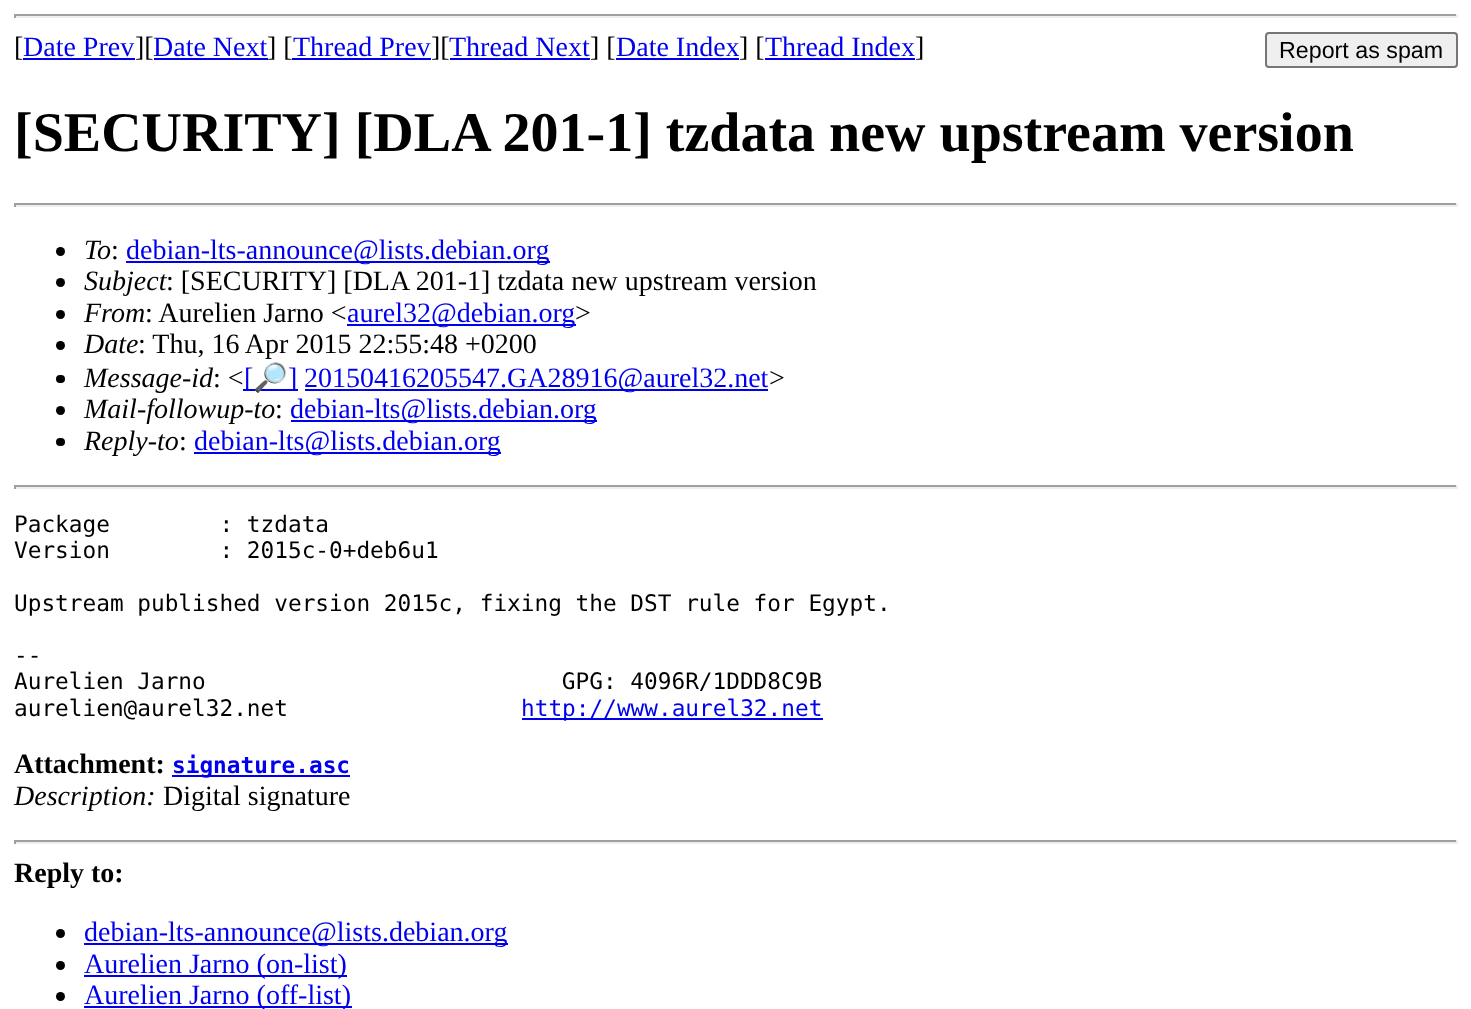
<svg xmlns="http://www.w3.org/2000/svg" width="1471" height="1009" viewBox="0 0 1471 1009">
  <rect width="100%" height="100%" fill="rgb(255,255,255)"/>
  <rect x="14" y="14" width="1444" height="2" fill="rgb(159,159,159)"/>
  <rect x="1456" y="14" width="2" height="4" fill="rgb(238,238,238)"/>
  <rect x="14" y="16" width="1444" height="2" fill="rgb(238,238,238)"/>
  <rect x="14" y="14" width="2" height="4" fill="rgb(159,159,159)"/>
  <text x="14" y="56" font-family="Liberation Serif" font-size="28" fill="rgb(0,0,0)">[</text>
  <text x="23" y="56" font-family="Liberation Serif" font-size="28" fill="rgb(0,0,238)">Date Prev</text>
  <rect x="23" y="58" width="112" height="2" fill="rgb(0,0,238)"/>
  <text x="135" y="56" font-family="Liberation Serif" font-size="28" fill="rgb(0,0,0)">][</text>
  <text x="153" y="56" font-family="Liberation Serif" font-size="28" fill="rgb(0,0,238)">Date Next</text>
  <rect x="154" y="58" width="114" height="2" fill="rgb(0,0,238)"/>
  <text x="267" y="56" font-family="Liberation Serif" font-size="28" fill="rgb(0,0,0)">] [</text>
  <text x="293" y="56" font-family="Liberation Serif" font-size="28" fill="rgb(0,0,238)">Thread Prev</text>
  <rect x="292" y="58" width="139" height="2" fill="rgb(0,0,238)"/>
  <text x="431" y="56" font-family="Liberation Serif" font-size="28" fill="rgb(0,0,0)">][</text>
  <text x="449" y="56" font-family="Liberation Serif" font-size="28" fill="rgb(0,0,238)">Thread Next</text>
  <rect x="450" y="58" width="140" height="2" fill="rgb(0,0,238)"/>
  <text x="590" y="56" font-family="Liberation Serif" font-size="28" fill="rgb(0,0,0)">] [</text>
  <text x="616" y="56" font-family="Liberation Serif" font-size="28" fill="rgb(0,0,238)">Date Index</text>
  <rect x="616" y="58" width="123" height="2" fill="rgb(0,0,238)"/>
  <text x="739" y="56" font-family="Liberation Serif" font-size="28" fill="rgb(0,0,0)">] [</text>
  <text x="765" y="56" font-family="Liberation Serif" font-size="28" fill="rgb(0,0,238)">Thread Index</text>
  <rect x="765" y="58" width="150" height="2" fill="rgb(0,0,238)"/>
  <text x="915" y="56" font-family="Liberation Serif" font-size="28" fill="rgb(0,0,0)">]</text>
  <rect x="1266" y="33" width="191" height="34" rx="3" fill="rgb(239,239,239)" stroke="rgb(118,118,118)" stroke-width="2"/>
  <text x="1279" y="58" font-family="Liberation Sans" font-size="23.25" fill="rgb(0,0,0)">Report as spam</text>
  <text x="14" y="151" font-family="Liberation Serif" font-size="56" font-weight="bold" fill="rgb(0,0,0)">[SECURITY] [DLA 201-1] tzdata new upstream version</text>
  <rect x="14" y="203" width="1444" height="2" fill="rgb(159,159,159)"/>
  <rect x="1456" y="203" width="2" height="4" fill="rgb(238,238,238)"/>
  <rect x="14" y="205" width="1444" height="2" fill="rgb(238,238,238)"/>
  <rect x="14" y="203" width="2" height="4" fill="rgb(159,159,159)"/>
  <circle cx="60.5" cy="251.5" r="4.5" fill="rgb(0,0,0)"/>
  <text x="84" y="259" font-family="Liberation Serif" font-size="28" font-style="italic" fill="rgb(0,0,0)">To</text>
  <text x="111" y="259" font-family="Liberation Serif" font-size="28" fill="rgb(0,0,0)">:</text>
  <rect x="126" y="261" width="424" height="2" fill="rgb(0,0,238)"/>
  <text x="126" y="259" font-family="Liberation Serif" font-size="28" fill="rgb(0,0,238)">debian-lts-announce@lists.debian.org</text>
  <circle cx="60.5" cy="282.5" r="4.5" fill="rgb(0,0,0)"/>
  <text x="84" y="290" font-family="Liberation Serif" font-size="28" font-style="italic" fill="rgb(0,0,0)">Subject</text>
  <text x="166" y="290" font-family="Liberation Serif" font-size="28" fill="rgb(0,0,0)">: [SECURITY] [DLA 201-1] tzdata new upstream version</text>
  <circle cx="60.5" cy="314.5" r="4.5" fill="rgb(0,0,0)"/>
  <text x="84" y="322" font-family="Liberation Serif" font-size="28" font-style="italic" fill="rgb(0,0,0)">From</text>
  <text x="145" y="322" font-family="Liberation Serif" font-size="28" fill="rgb(0,0,0)">: Aurelien Jarno &lt;</text>
  <rect x="347" y="324" width="229" height="2" fill="rgb(0,0,238)"/>
  <text x="347" y="322" font-family="Liberation Serif" font-size="28" fill="rgb(0,0,238)">aurel32@debian.org</text>
  <text x="575" y="322" font-family="Liberation Serif" font-size="28" fill="rgb(0,0,0)">&gt;</text>
  <circle cx="60.5" cy="345.5" r="4.5" fill="rgb(0,0,0)"/>
  <text x="84" y="353" font-family="Liberation Serif" font-size="28" font-style="italic" fill="rgb(0,0,0)">Date</text>
  <text x="138" y="353" font-family="Liberation Serif" font-size="28" fill="rgb(0,0,0)">: Thu, 16 Apr 2015 22:55:48 +0200</text>
  <rect x="56" y="375" width="9" height="8" rx="4" fill="rgb(0,0,0)"/>
  <text x="84" y="387" font-family="Liberation Serif" font-size="28" font-style="italic" fill="rgb(0,0,0)">Message-id</text>
  <text x="213" y="387" font-family="Liberation Serif" font-size="28" fill="rgb(0,0,0)">: &lt;</text>
  <rect x="243" y="389" width="55" height="2" fill="rgb(0,0,238)"/>
  <text x="244" y="387" font-family="Liberation Serif" font-size="28" fill="rgb(0,0,238)">[</text>
  <text x="253" y="387" font-family="Noto Color Emoji" font-size="28" fill="rgb(0,0,238)">🔎</text>
  <text x="288" y="387" font-family="Liberation Serif" font-size="28" fill="rgb(0,0,238)">]</text>
  <rect x="305" y="389" width="463" height="2" fill="rgb(0,0,238)"/>
  <text x="304" y="387" font-family="Liberation Serif" font-size="28" fill="rgb(0,0,238)">20150416205547.GA28916@aurel32.net</text>
  <text x="769" y="387" font-family="Liberation Serif" font-size="28" fill="rgb(0,0,0)">&gt;</text>
  <circle cx="60.5" cy="410.5" r="4.5" fill="rgb(0,0,0)"/>
  <text x="84" y="418" font-family="Liberation Serif" font-size="28" font-style="italic" fill="rgb(0,0,0)">Mail-followup-to</text>
  <text x="275" y="418" font-family="Liberation Serif" font-size="28" fill="rgb(0,0,0)">:</text>
  <rect x="291" y="420" width="306" height="2" fill="rgb(0,0,238)"/>
  <text x="290" y="418" font-family="Liberation Serif" font-size="28" fill="rgb(0,0,238)">debian-lts@lists.debian.org</text>
  <rect x="56" y="438" width="9" height="8" rx="4" fill="rgb(0,0,0)"/>
  <text x="84" y="450" font-family="Liberation Serif" font-size="28" font-style="italic" fill="rgb(0,0,0)">Reply-to</text>
  <text x="179" y="450" font-family="Liberation Serif" font-size="28" fill="rgb(0,0,0)">:</text>
  <rect x="194" y="452" width="307" height="2" fill="rgb(0,0,238)"/>
  <text x="194" y="450" font-family="Liberation Serif" font-size="28" fill="rgb(0,0,238)">debian-lts@lists.debian.org</text>
  <rect x="14" y="485" width="1444" height="2" fill="rgb(159,159,159)"/>
  <rect x="1456" y="485" width="2" height="4" fill="rgb(238,238,238)"/>
  <rect x="14" y="487" width="1444" height="2" fill="rgb(238,238,238)"/>
  <rect x="14" y="485" width="2" height="4" fill="rgb(159,159,159)"/>
  <g font-family="DejaVu Sans Mono" font-size="22.75" fill="rgb(0,0,0)">
    <text xml:space="preserve"><tspan x="14" y="532">Package        : tzdata</tspan><tspan x="14" y="558">Version        : 2015c-0+deb6u1</tspan></text>
    <text x="14" y="611">Upstream published version 2015c, fixing the DST rule for Egypt.</text>
    <text xml:space="preserve"><tspan x="14" y="663">--</tspan><tspan x="14" y="689">Aurelien Jarno                          GPG: 4096R/1DDD8C9B</tspan><tspan x="14" y="716">aurelien@aurel32.net</tspan></text>
  </g>
  <rect x="522" y="718" width="301" height="2" fill="rgb(0,0,238)"/>
  <text x="521" y="716" font-family="DejaVu Sans Mono" font-size="22.75" fill="rgb(0,0,238)">http://www.aurel32.net</text>
  <text x="14" y="773" font-family="Liberation Serif" font-size="28" font-weight="bold" fill="rgb(0,0,0)">Attachment:</text>
  <rect x="172" y="775" width="178" height="2" fill="rgb(0,0,238)"/>
  <text x="172" y="773" font-family="DejaVu Sans Mono" font-size="22.75" font-weight="bold" fill="rgb(0,0,238)">signature.asc</text>
  <text x="14" y="805" font-family="Liberation Serif" font-size="28" font-style="italic" fill="rgb(0,0,0)">Description:</text>
  <text x="163" y="805" font-family="Liberation Serif" font-size="28" fill="rgb(0,0,0)">Digital signature</text>
  <rect x="14" y="840" width="1444" height="2" fill="rgb(159,159,159)"/>
  <rect x="1456" y="840" width="2" height="4" fill="rgb(238,238,238)"/>
  <rect x="14" y="842" width="1444" height="2" fill="rgb(238,238,238)"/>
  <rect x="14" y="840" width="2" height="4" fill="rgb(159,159,159)"/>
  <text x="14" y="882" font-family="Liberation Serif" font-size="28" font-weight="bold" fill="rgb(0,0,0)">Reply to:</text>
  <circle cx="60.5" cy="933.5" r="4.5" fill="rgb(0,0,0)"/>
  <rect x="84" y="943" width="424" height="2" fill="rgb(0,0,238)"/>
  <text x="84" y="941" font-family="Liberation Serif" font-size="28" fill="rgb(0,0,238)">debian-lts-announce@lists.debian.org</text>
  <circle cx="60.5" cy="965.5" r="4.5" fill="rgb(0,0,0)"/>
  <rect x="84" y="975" width="263" height="2" fill="rgb(0,0,238)"/>
  <text x="84" y="973" font-family="Liberation Serif" font-size="28" fill="rgb(0,0,238)">Aurelien Jarno (on-list)</text>
  <circle cx="60.5" cy="996.5" r="4.5" fill="rgb(0,0,0)"/>
  <rect x="84" y="1006" width="268" height="2" fill="rgb(0,0,238)"/>
  <text x="84" y="1004" font-family="Liberation Serif" font-size="28" fill="rgb(0,0,238)">Aurelien Jarno (off-list)</text>
</svg>
